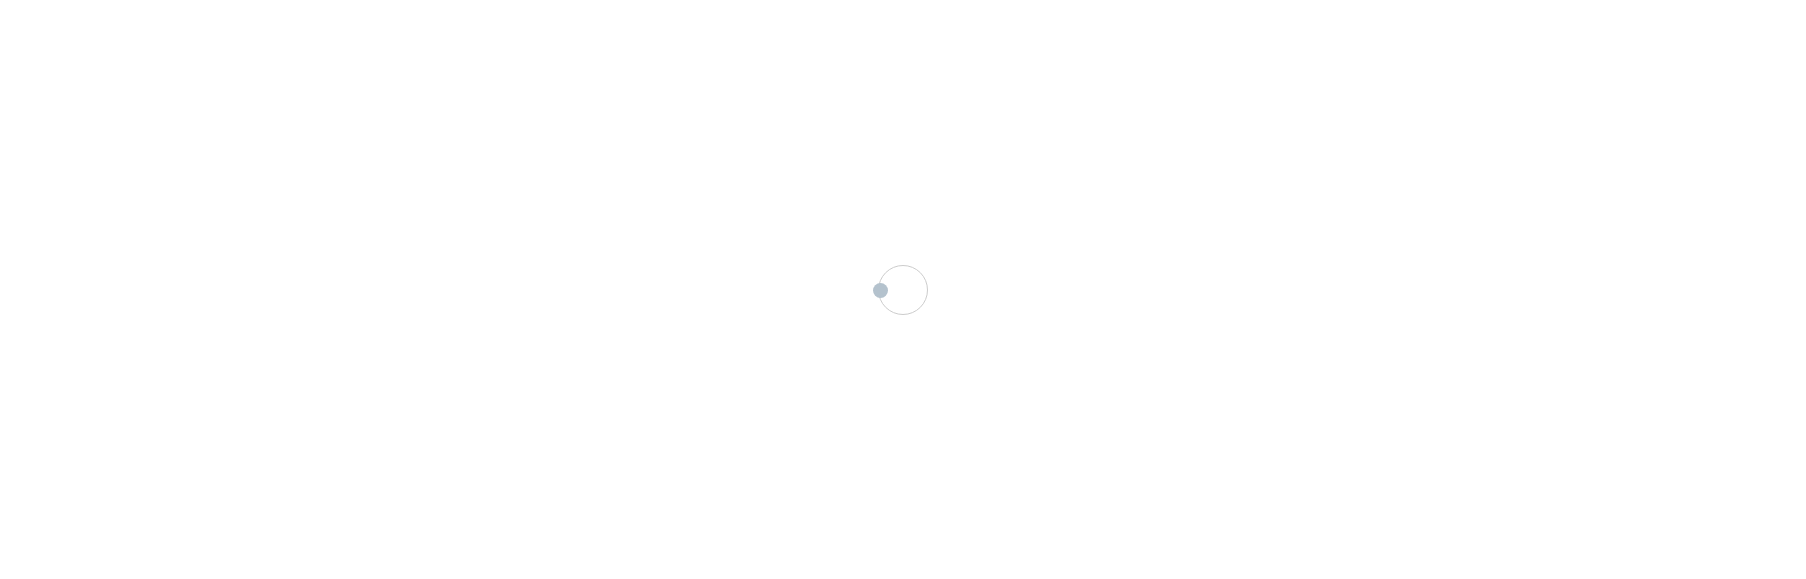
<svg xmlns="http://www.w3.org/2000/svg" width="1806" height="579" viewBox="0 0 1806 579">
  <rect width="100%" height="100%" fill="rgb(255,255,255)"/>
  <circle cx="903" cy="290" r="24.5" fill="none" stroke="rgb(204,204,204)"/>
  <circle cx="880.5" cy="290.5" r="7.5" fill="rgb(180,194,205)"/>
</svg>
